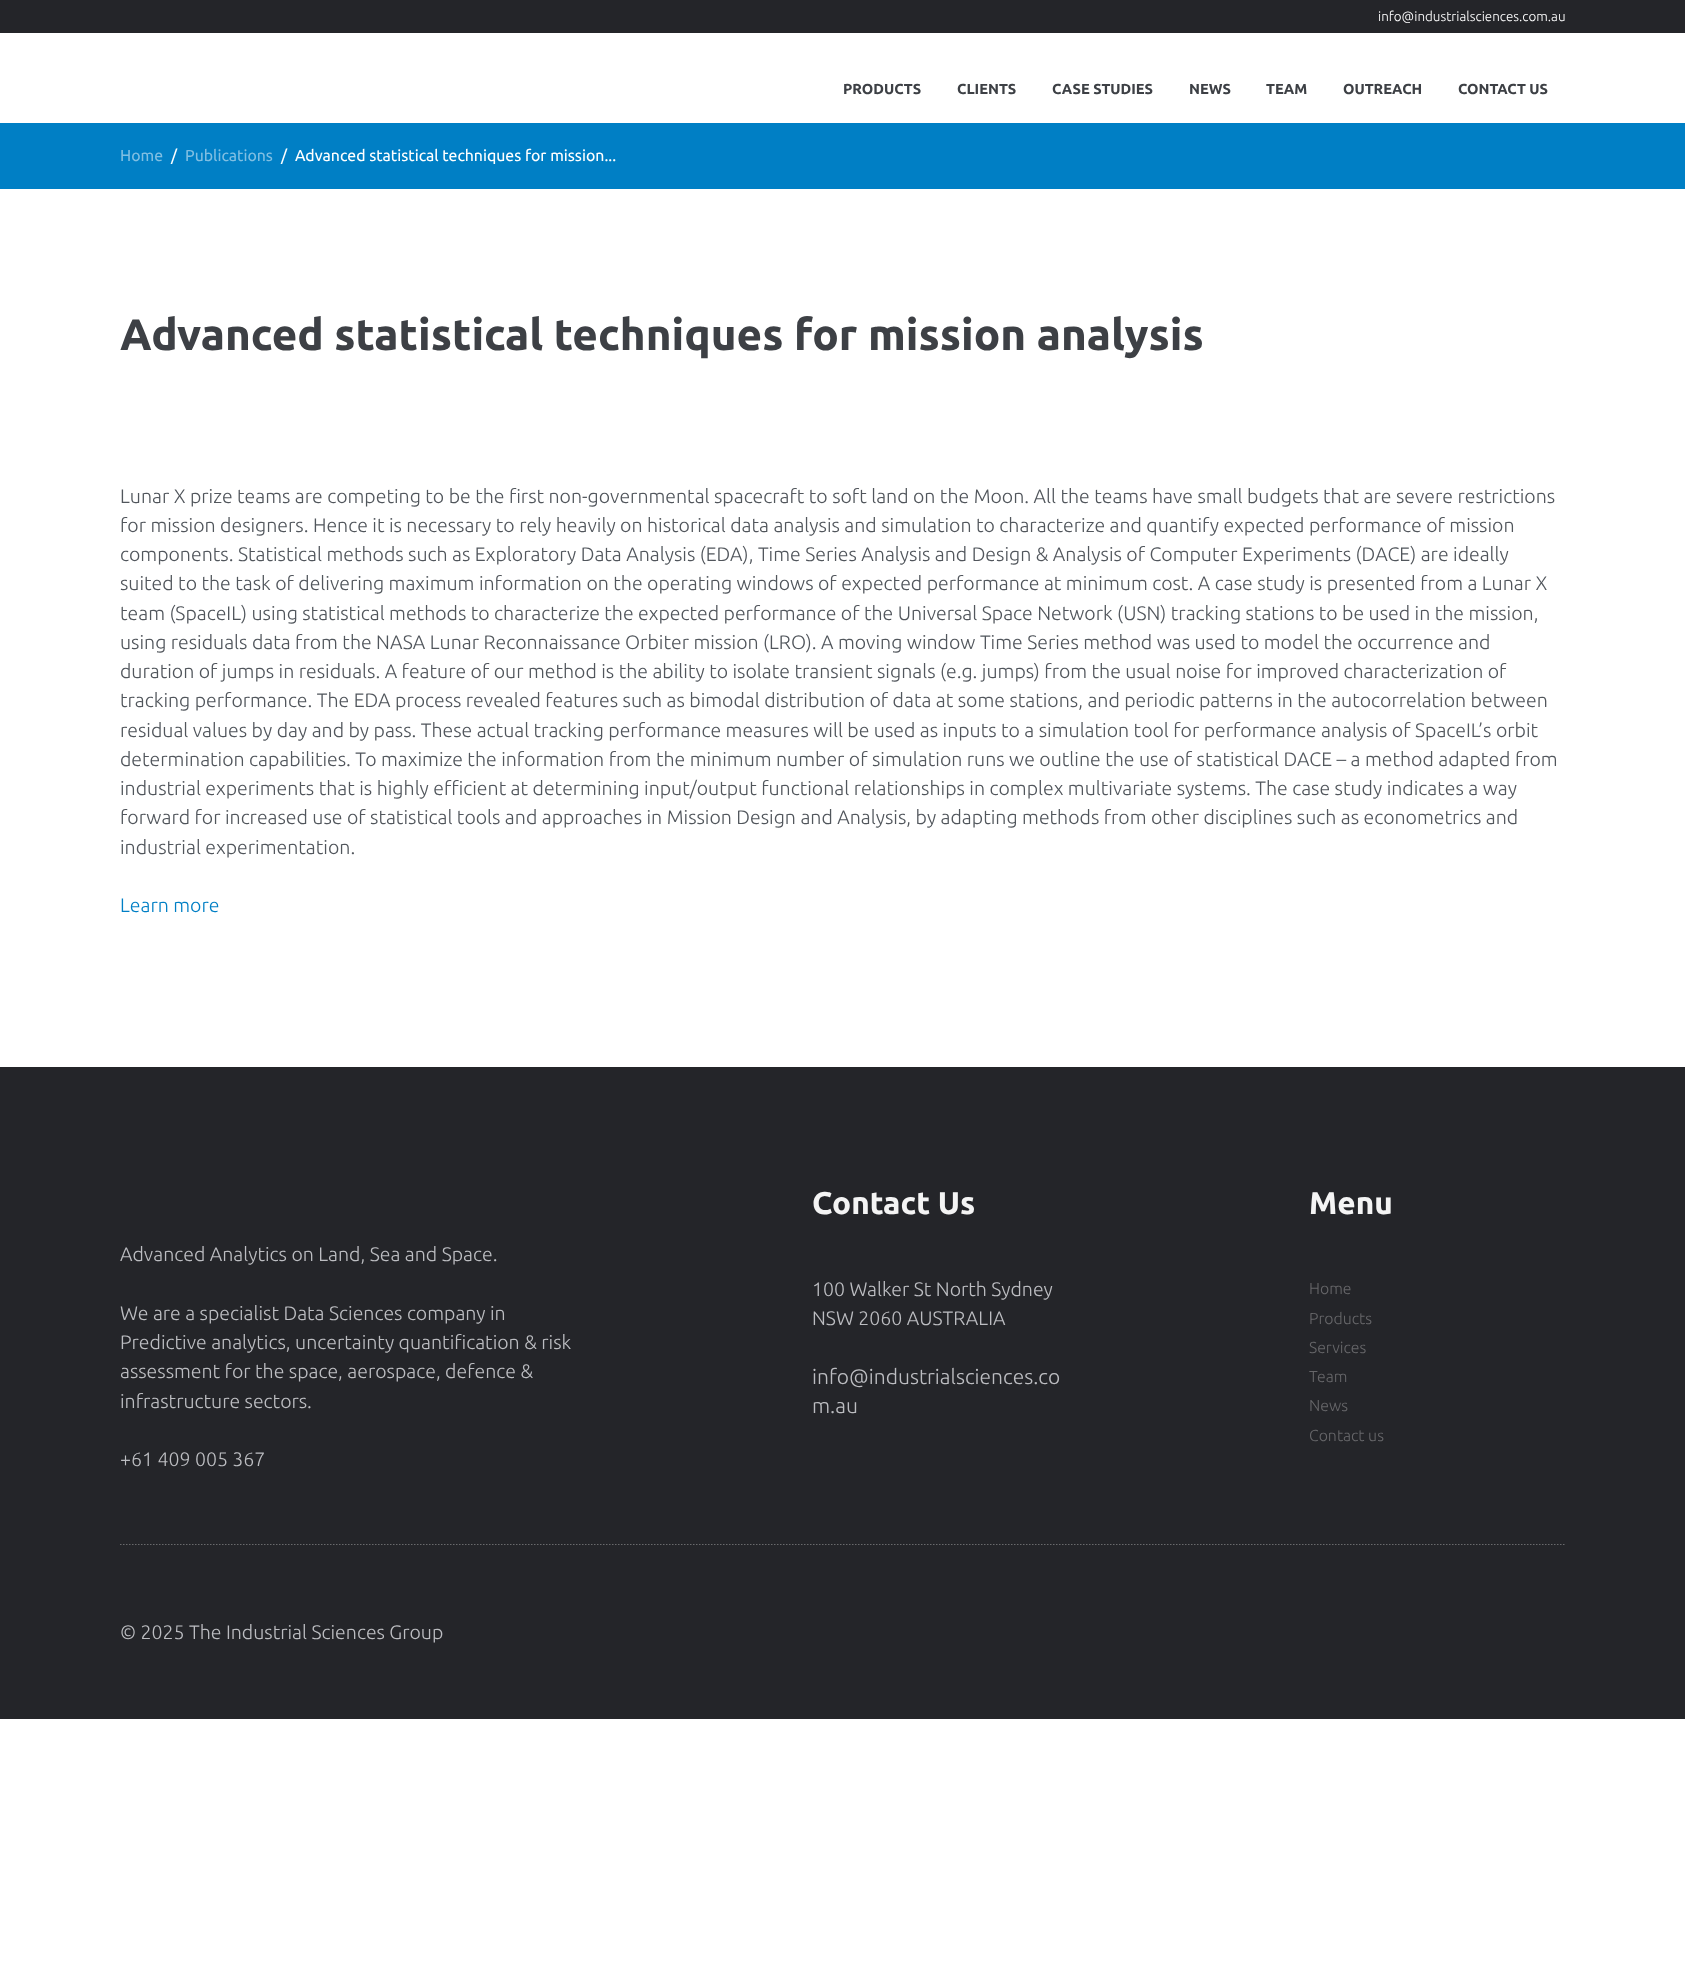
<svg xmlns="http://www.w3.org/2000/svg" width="1685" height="1981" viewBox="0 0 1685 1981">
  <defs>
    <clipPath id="clip1"><rect x="0" y="1544" width="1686" height="175"/></clipPath>
  </defs>
  <rect width="100%" height="100%" fill="rgb(255,255,255)"/>
  <rect x="0" y="0" width="1685" height="33" fill="rgb(36,37,41)"/>
  <text x="1378" y="21" font-family="Ubuntu" font-size="13.4" font-weight="300" fill="rgb(255,255,255)">info@industrialsciences.com.au</text>
  <g font-family="Ubuntu" font-size="14.5" font-weight="bold" fill="rgb(61,64,69)">
    <text x="843" y="94">PRODUCTS</text>
    <text x="957" y="94">CLIENTS</text>
    <text x="1052" y="94">CASE STUDIES</text>
    <text x="1189" y="94">NEWS</text>
    <text x="1266" y="94">TEAM</text>
    <text x="1343" y="94">OUTREACH</text>
    <text x="1458" y="94">CONTACT US</text>
  </g>
  <rect x="0" y="123" width="1685" height="66" fill="rgb(0,127,197)"/>
  <text x="120" y="161" font-family="Ubuntu" font-size="15.85" fill="rgb(128,191,226)">Home</text>
  <text x="171" y="161" font-family="Ubuntu" font-size="15.85" fill="rgb(255,255,255)">/</text>
  <text x="185" y="161" font-family="Ubuntu" font-size="15.85" fill="rgb(128,191,226)">Publications</text>
  <g font-family="Ubuntu" font-size="15.85" fill="rgb(255,255,255)">
    <text x="281" y="161">/</text>
    <text x="295" y="161">Advanced statistical techniques for mission...</text>
  </g>
  <text x="120" y="350" font-family="Ubuntu" font-size="43.9" font-weight="bold" fill="rgb(61,64,69)">Advanced statistical techniques for mission analysis</text>
  <g font-family="Ubuntu" font-size="19.5" font-weight="300" fill="rgb(81,86,92)">
    <text>
      <tspan x="120" y="503">Lunar X prize teams are competing to be the first non-governmental spacecraft to soft land on the Moon. All the teams have small budgets that are severe restrictions</tspan>
      <tspan x="120" y="532">for mission designers. Hence it is necessary to rely heavily on historical data analysis and simulation to characterize and quantify expected performance of mission</tspan>
      <tspan x="120" y="561">components. Statistical methods such as Exploratory Data Analysis (EDA), Time Series Analysis and Design &amp; Analysis of Computer Experiments (DACE) are ideally</tspan>
      <tspan x="120" y="590">suited to the task of delivering maximum information on the operating windows of expected performance at minimum cost. A case study is presented from a Lunar X</tspan>
      <tspan x="120" y="620">team (SpaceIL) using statistical methods to characterize the expected performance of the Universal Space Network (USN) tracking stations to be used in the mission,</tspan>
      <tspan x="120" y="649">using residuals data from the NASA Lunar Reconnaissance Orbiter mission (LRO). A moving window Time Series method was used to model the occurrence and</tspan>
      <tspan x="120" y="678">duration of jumps in residuals. A feature of our method is the ability to isolate transient signals (e.g. jumps) from the usual noise for improved characterization of</tspan>
      <tspan x="120" y="707">tracking performance. The EDA process revealed features such as bimodal distribution of data at some stations, and periodic patterns in the autocorrelation between</tspan>
      <tspan x="120" y="737">residual values by day and by pass. These actual tracking performance measures will be used as inputs to a simulation tool for performance analysis of SpaceIL’s orbit</tspan>
      <tspan x="120" y="766">determination capabilities. To maximize the information from the minimum number of simulation runs we outline the use of statistical DACE – a method adapted from</tspan>
      <tspan x="120" y="795">industrial experiments that is highly efficient at determining input/output functional relationships in complex multivariate systems. The case study indicates a way</tspan>
      <tspan x="120" y="824">forward for increased use of statistical tools and approaches in Mission Design and Analysis, by adapting methods from other disciplines such as econometrics and</tspan>
      <tspan x="120" y="854">industrial experimentation.</tspan>
    </text>
  </g>
  <text x="120" y="912" font-family="Ubuntu" font-size="19.5" font-weight="300" fill="rgb(0,127,197)">Learn more</text>
  <rect x="0" y="1067" width="1685" height="652" fill="rgb(36,37,41)"/>
  <g font-family="Ubuntu" font-size="19.5" font-weight="300" fill="rgb(188,189,193)">
    <text x="120" y="1261">Advanced Analytics on Land, Sea and Space.</text>
    <text>
      <tspan x="120" y="1320">We are a specialist Data Sciences company in</tspan>
      <tspan x="120" y="1349">Predictive analytics, uncertainty quantification &amp; risk</tspan>
      <tspan x="120" y="1378">assessment for the space, aerospace, defence &amp;</tspan>
      <tspan x="120" y="1408">infrastructure sectors.</tspan>
    </text>
    <text x="120" y="1466">+61 409 005 367</text>
  </g>
  <text x="812" y="1214" font-family="Ubuntu" font-size="31.5" font-weight="bold" fill="rgb(244,244,244)">Contact Us</text>
  <g font-family="Ubuntu" font-size="19.5" font-weight="300" fill="rgb(188,189,193)">
    <text>
      <tspan x="812" y="1296">100 Walker St North Sydney</tspan>
      <tspan x="812" y="1325">NSW 2060 AUSTRALIA</tspan>
    </text>
  </g>
  <g font-family="Ubuntu" font-size="21" font-weight="300" fill="rgb(188,189,193)">
    <text>
      <tspan x="812" y="1384">info@industrialsciences.co</tspan>
      <tspan x="812" y="1413">m.au</tspan>
    </text>
  </g>
  <text x="1309" y="1214" font-family="Ubuntu" font-size="31.5" font-weight="bold" fill="rgb(244,244,244)">Menu</text>
  <g font-family="Ubuntu" font-size="15.85" font-weight="300" fill="rgb(102,102,105)">
    <text>
      <tspan x="1309" y="1294">Home</tspan>
      <tspan x="1309" y="1324">Products</tspan>
      <tspan x="1309" y="1353">Services</tspan>
      <tspan x="1309" y="1382">Team</tspan>
      <tspan x="1309" y="1411">News</tspan>
      <tspan x="1309" y="1441">Contact us</tspan>
    </text>
  </g>
  <g clip-path="url(#clip1)">
    <path d="M120 1544H1566" fill="none" stroke="rgb(128,129,131)" stroke-width="1.5" stroke-dasharray="1.5 1.5"/>
  </g>
  <text x="120" y="1639" font-family="Ubuntu" font-size="19.5" font-weight="300" fill="rgb(188,189,193)">© 2025 The Industrial Sciences Group</text>
</svg>
